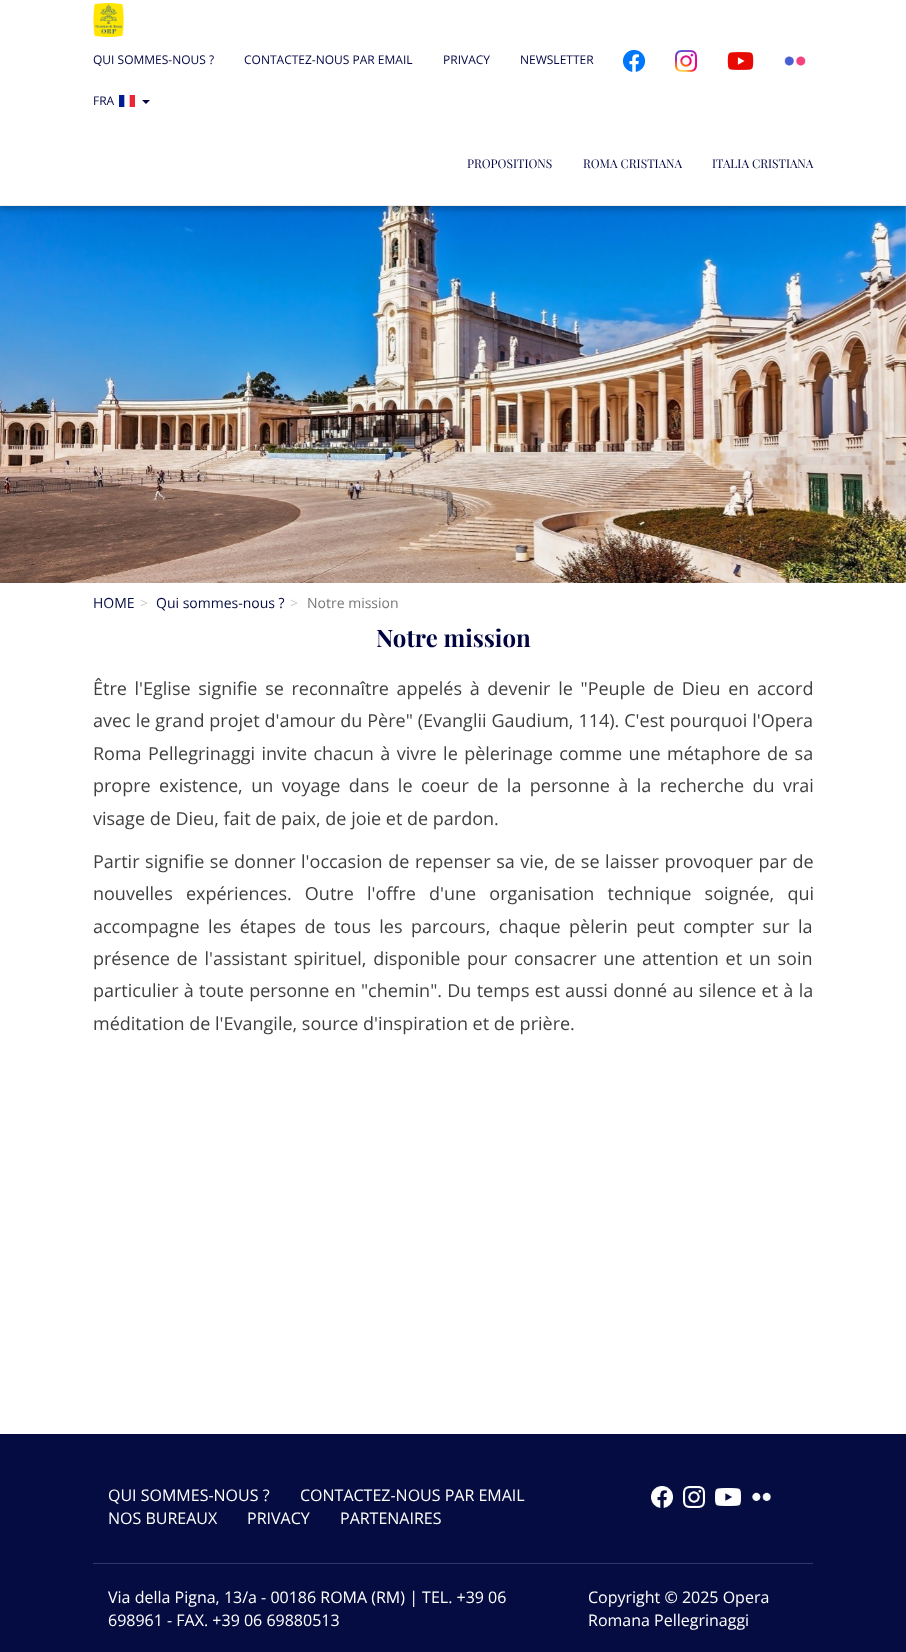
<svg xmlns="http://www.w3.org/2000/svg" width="906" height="1652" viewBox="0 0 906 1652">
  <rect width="100%" height="100%" fill="rgb(255,255,255)"/>
  <image x="0" y="206" width="906" height="377" href="pic7.png"/>
  <rect x="0" y="3" width="906" height="206" fill="rgba(0,0,0,0.25)" filter="blur(3px)"/>
  <rect x="0" y="0" width="906" height="205" fill="rgb(255,255,255)"/>
  <rect x="0" y="205" width="906" height="1" fill="rgb(238,238,238)"/>
  <image x="93" y="3" width="31" height="34" href="pic1.png"/>
  <g font-family="Open Sans" font-size="12" fill="rgb(1,3,65)">
    <text x="93" y="64">QUI SOMMES-NOUS ?</text>
    <text x="244" y="64">CONTACTEZ-NOUS PAR EMAIL</text>
    <text x="443" y="64">PRIVACY</text>
    <text x="520" y="64">NEWSLETTER</text>
  </g>
  <image x="623" y="50" width="22" height="22" href="pic2.png"/>
  <image x="675" y="50" width="22" height="22" href="pic3.png"/>
  <image x="727" y="52" width="27" height="18" href="pic4.png"/>
  <image x="784" y="56" width="22" height="10" href="pic5.png"/>
  <text x="93" y="105" font-family="Open Sans" font-size="12" fill="rgb(1,3,65)">FRA</text>
  <image x="119" y="95" width="16" height="12" href="pic6.png"/>
  <path d="M142 100H150L146 104Z" fill="rgb(1,3,65)"/>
  <g font-family="Playfair Display" font-size="12" fill="rgb(1,3,65)">
    <text x="467" y="168">PROPOSITIONS</text>
    <text x="583" y="168">ROMA CRISTIANA</text>
    <text x="712" y="168">ITALIA CRISTIANA</text>
  </g>
  <text x="93" y="608" font-family="Open Sans" font-size="14" fill="rgb(4,12,65)">HOME</text>
  <text x="140" y="608" font-family="Open Sans" font-size="14" fill="rgb(204,204,204)">&gt;</text>
  <text x="156" y="608" font-family="Open Sans" font-size="14" fill="rgb(4,12,65)">Qui sommes-nous ?</text>
  <text x="290" y="608" font-family="Open Sans" font-size="14" fill="rgb(204,204,204)">&gt;</text>
  <text x="307" y="608" font-family="Open Sans" font-size="14" fill="rgb(119,119,119)">Notre mission</text>
  <text x="376" y="647" font-family="Playfair Display" font-size="24" font-weight="bold" fill="rgb(1,3,65)">Notre mission</text>
  <g font-family="Open Sans" font-size="18" fill="rgb(64,63,63)">
    <text>
      <tspan x="93" y="695" word-spacing="3">Être l'Eglise signifie se reconnaître appelés à devenir le "Peuple de Dieu en accord</tspan>
      <tspan x="93" y="727" word-spacing="0.25">avec le grand projet d'amour du Père" (Evanglii Gaudium, 114). C'est pourquoi l'Opera</tspan>
      <tspan x="93" y="760" word-spacing="1.75">Roma Pellegrinaggi invite chacun à vivre le pèlerinage comme une métaphore de sa</tspan>
      <tspan x="93" y="792" word-spacing="3.75">propre existence, un voyage dans le coeur de la personne à la recherche du vrai</tspan>
      <tspan x="93" y="825">visage de Dieu, fait de paix, de joie et de pardon.</tspan>
    </text>
    <text>
      <tspan x="93" y="868" word-spacing="0.9">Partir signifie se donner l'occasion de repenser sa vie, de se laisser provoquer par de</tspan>
      <tspan x="93" y="900" word-spacing="8.5">nouvelles expériences. Outre l'offre d'une organisation technique soignée, qui</tspan>
      <tspan x="93" y="933" word-spacing="3.75">accompagne les étapes de tous les parcours, chaque pèlerin peut compter sur la</tspan>
      <tspan x="93" y="965" word-spacing="2">présence de l'assistant spirituel, disponible pour consacrer une attention et un soin</tspan>
      <tspan x="93" y="997" word-spacing="0.6">particulier à toute personne en "chemin". Du temps est aussi donné au silence et à la</tspan>
      <tspan x="93" y="1030">méditation de l'Evangile, source d'inspiration et de prière.</tspan>
    </text>
  </g>
  <rect x="0" y="1434" width="906" height="218" fill="rgb(4,12,65)"/>
  <g font-family="Open Sans" font-size="16" fill="rgb(255,255,255)">
    <text x="108" y="1501">QUI SOMMES-NOUS ?</text>
    <text x="300" y="1501">CONTACTEZ-NOUS PAR EMAIL</text>
    <text x="108" y="1524">NOS BUREAUX</text>
    <text x="247" y="1524">PRIVACY</text>
    <text x="340" y="1524">PARTENAIRES</text>
  </g>
  <image x="651" y="1486" width="22" height="22" href="pic8.png"/>
  <image x="683" y="1486" width="22" height="22" href="pic9.png"/>
  <image x="715" y="1488" width="26" height="18" href="pic10.png"/>
  <image x="752" y="1492" width="19" height="9" href="pic11.png"/>
  <rect x="93" y="1563" width="720" height="1" fill="rgb(51,55,103)"/>
  <g font-family="Open Sans" font-size="16" fill="rgb(255,255,255)">
    <text>
      <tspan x="108" y="1603">Via della Pigna, 13/a - 00186 ROMA (RM) | TEL. +39 06</tspan>
      <tspan x="108" y="1626">698961 - FAX. +39 06 69880513</tspan>
    </text>
    <text>
      <tspan x="588" y="1603">Copyright © 2025 Opera</tspan>
      <tspan x="588" y="1626">Romana Pellegrinaggi</tspan>
    </text>
  </g>
</svg>
